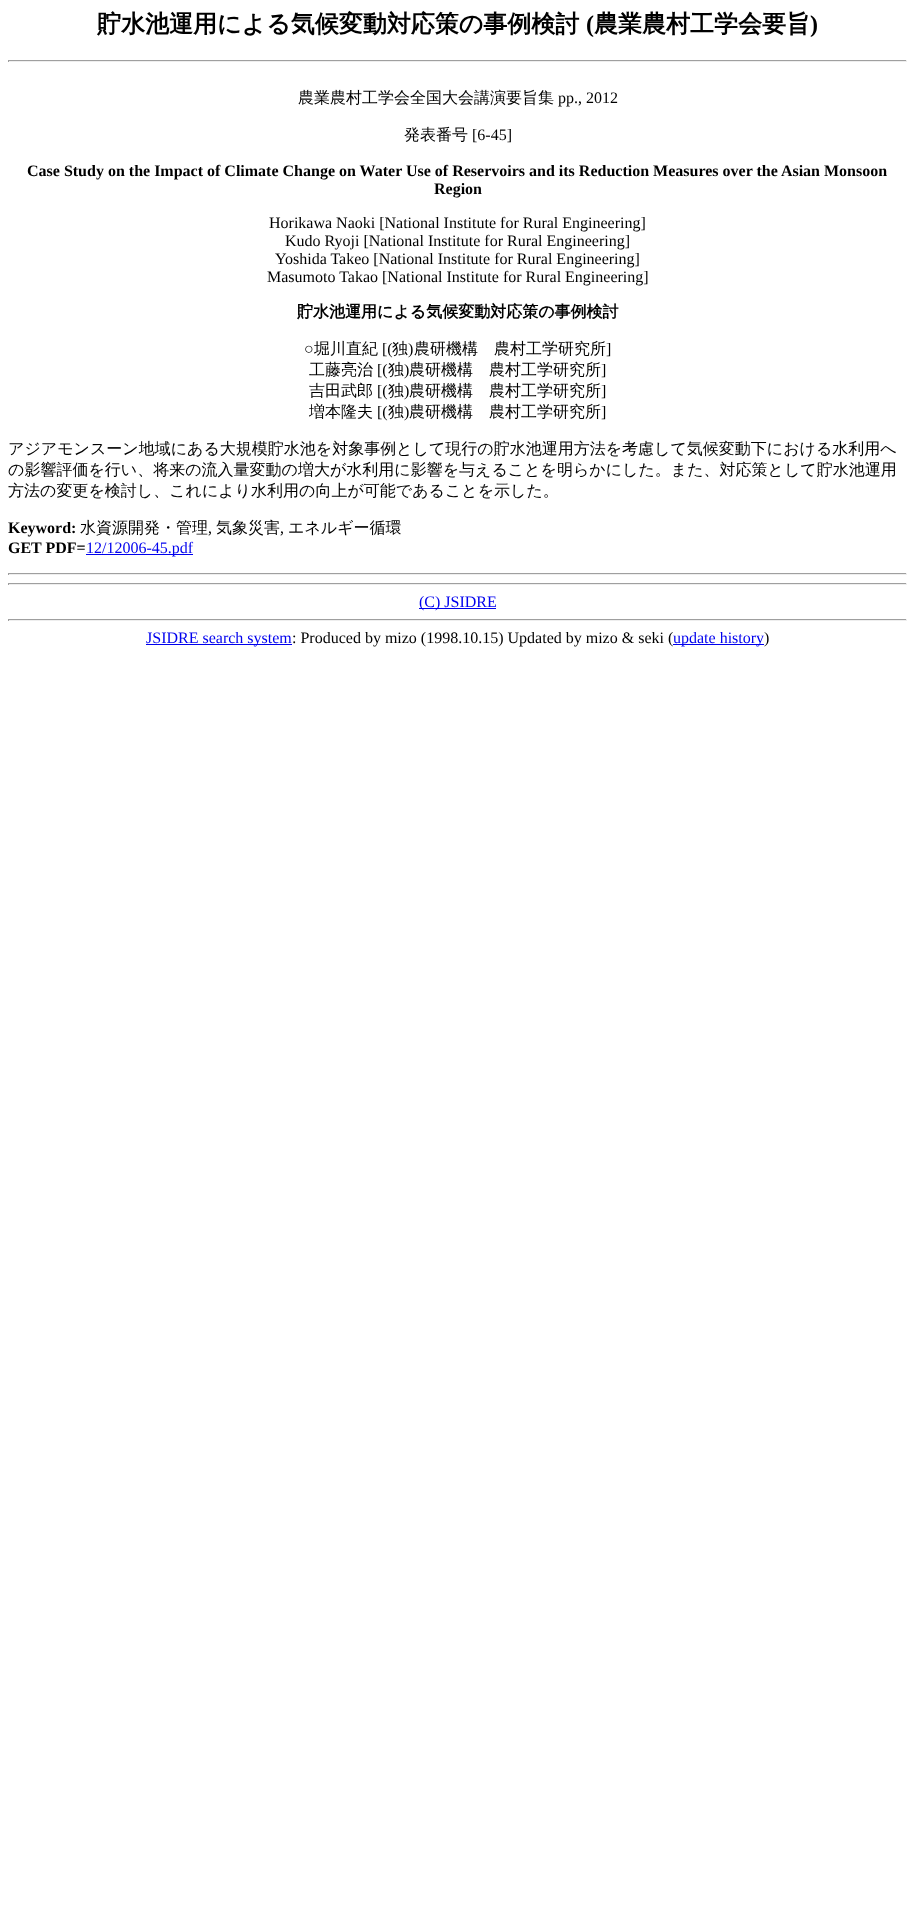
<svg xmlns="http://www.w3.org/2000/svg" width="915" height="1911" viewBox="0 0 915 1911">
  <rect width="100%" height="100%" fill="rgb(255,255,255)"/>
  <text x="97" y="32" font-family="WenQuanYi Zen Hei" font-size="24" font-weight="bold" fill="rgb(0,0,0)">貯水池運用による気候変動対応策の事例検討</text>
  <text x="586" y="32" font-family="Liberation Serif" font-size="24" font-weight="bold" fill="rgb(0,0,0)">(</text>
  <text x="594" y="32" font-family="WenQuanYi Zen Hei" font-size="24" font-weight="bold" fill="rgb(0,0,0)">農業農村工学会要旨</text>
  <text x="810" y="32" font-family="Liberation Serif" font-size="24" font-weight="bold" fill="rgb(0,0,0)">)</text>
  <rect x="8" y="60" width="899" height="1" fill="rgb(159,159,159)"/>
  <rect x="906" y="60" width="1" height="2" fill="rgb(238,238,238)"/>
  <rect x="8" y="61" width="899" height="1" fill="rgb(238,238,238)"/>
  <rect x="8" y="60" width="1" height="2" fill="rgb(159,159,159)"/>
  <text x="298" y="103" font-family="WenQuanYi Zen Hei" font-size="16" font-weight="500" fill="rgb(0,0,0)">農業農村工学会全国大会講演要旨集</text>
  <text x="558" y="103" font-family="Liberation Serif" font-size="16" fill="rgb(0,0,0)">pp., 2012</text>
  <text x="404" y="140" font-family="WenQuanYi Zen Hei" font-size="16" font-weight="500" fill="rgb(0,0,0)">発表番号</text>
  <text x="472" y="140" font-family="Liberation Serif" font-size="16" fill="rgb(0,0,0)">[6-45]</text>
  <g font-family="Liberation Serif" font-size="16" font-weight="bold" fill="rgb(0,0,0)">
    <text x="27" y="176">Case Study on the Impact of Climate Change on Water Use of Reservoirs and its Reduction Measures over the Asian Monsoon</text>
    <text x="434" y="194">Region</text>
  </g>
  <g font-family="Liberation Serif" font-size="16" fill="rgb(0,0,0)">
    <text x="269" y="228">Horikawa Naoki [National Institute for Rural Engineering]</text>
    <text x="285" y="246">Kudo Ryoji [National Institute for Rural Engineering]</text>
    <text x="275" y="264">Yoshida Takeo [National Institute for Rural Engineering]</text>
    <text x="267" y="282">Masumoto Takao [National Institute for Rural Engineering]</text>
  </g>
  <text x="297" y="317" font-family="WenQuanYi Zen Hei" font-size="16" font-weight="bold" fill="rgb(0,0,0)">貯水池運用による気候変動対応策の事例検討</text>
  <text x="304" y="354" font-family="Liberation Serif" font-size="16" fill="rgb(0,0,0)">○</text>
  <text x="314" y="354" font-family="WenQuanYi Zen Hei" font-size="16" font-weight="500" fill="rgb(0,0,0)">堀川直紀</text>
  <text x="382" y="354" font-family="Liberation Serif" font-size="16" fill="rgb(0,0,0)">[(</text>
  <text x="392" y="354" font-family="WenQuanYi Zen Hei" font-size="16" font-weight="500" fill="rgb(0,0,0)">独</text>
  <text x="408" y="354" font-family="Liberation Serif" font-size="16" fill="rgb(0,0,0)">)</text>
  <text x="414" y="354" font-family="WenQuanYi Zen Hei" font-size="16" font-weight="500" fill="rgb(0,0,0)">農研機構　農村工学研究所</text>
  <text x="606" y="354" font-family="Liberation Serif" font-size="16" fill="rgb(0,0,0)">]</text>
  <text x="309" y="375" font-family="WenQuanYi Zen Hei" font-size="16" font-weight="500" fill="rgb(0,0,0)">工藤亮治</text>
  <text x="377" y="375" font-family="Liberation Serif" font-size="16" fill="rgb(0,0,0)">[(</text>
  <text x="388" y="375" font-family="WenQuanYi Zen Hei" font-size="16" font-weight="500" fill="rgb(0,0,0)">独</text>
  <text x="404" y="375" font-family="Liberation Serif" font-size="16" fill="rgb(0,0,0)">)</text>
  <text x="409" y="375" font-family="WenQuanYi Zen Hei" font-size="16" font-weight="500" fill="rgb(0,0,0)">農研機構　農村工学研究所</text>
  <text x="601" y="375" font-family="Liberation Serif" font-size="16" fill="rgb(0,0,0)">]</text>
  <text x="309" y="396" font-family="WenQuanYi Zen Hei" font-size="16" font-weight="500" fill="rgb(0,0,0)">吉田武郎</text>
  <text x="377" y="396" font-family="Liberation Serif" font-size="16" fill="rgb(0,0,0)">[(</text>
  <text x="388" y="396" font-family="WenQuanYi Zen Hei" font-size="16" font-weight="500" fill="rgb(0,0,0)">独</text>
  <text x="404" y="396" font-family="Liberation Serif" font-size="16" fill="rgb(0,0,0)">)</text>
  <text x="409" y="396" font-family="WenQuanYi Zen Hei" font-size="16" font-weight="500" fill="rgb(0,0,0)">農研機構　農村工学研究所</text>
  <text x="601" y="396" font-family="Liberation Serif" font-size="16" fill="rgb(0,0,0)">]</text>
  <text x="309" y="417" font-family="WenQuanYi Zen Hei" font-size="16" font-weight="500" fill="rgb(0,0,0)">増本隆夫</text>
  <text x="377" y="417" font-family="Liberation Serif" font-size="16" fill="rgb(0,0,0)">[(</text>
  <text x="388" y="417" font-family="WenQuanYi Zen Hei" font-size="16" font-weight="500" fill="rgb(0,0,0)">独</text>
  <text x="404" y="417" font-family="Liberation Serif" font-size="16" fill="rgb(0,0,0)">)</text>
  <text x="409" y="417" font-family="WenQuanYi Zen Hei" font-size="16" font-weight="500" fill="rgb(0,0,0)">農研機構　農村工学研究所</text>
  <text x="601" y="417" font-family="Liberation Serif" font-size="16" fill="rgb(0,0,0)">]</text>
  <g font-family="WenQuanYi Zen Hei" font-size="16" font-weight="500" fill="rgb(0,0,0)">
    <text>
      <tspan x="8" y="454">アジアモンスーン地域にある大規模貯水池を対象事例として現行の貯水池運用方法を考慮して気候変動下における水利用へ</tspan>
      <tspan x="8" y="475">の影響評価を行い、将来の流入量変動の増大が水利用に影響を与えることを明らかにした。また、対応策として貯水池運用</tspan>
      <tspan x="8" y="496">方法の変更を検討し、これにより水利用の向上が可能であることを示した。</tspan>
    </text>
  </g>
  <text x="8" y="533" font-family="Liberation Serif" font-size="16" font-weight="bold" fill="rgb(0,0,0)">Keyword:</text>
  <text x="80" y="533" font-family="WenQuanYi Zen Hei" font-size="16" font-weight="500" fill="rgb(0,0,0)">水資源開発・管理</text>
  <text x="208" y="533" font-family="Liberation Serif" font-size="16" fill="rgb(0,0,0)">,</text>
  <text x="216" y="533" font-family="WenQuanYi Zen Hei" font-size="16" font-weight="500" fill="rgb(0,0,0)">気象災害</text>
  <text x="280" y="533" font-family="Liberation Serif" font-size="16" fill="rgb(0,0,0)">,</text>
  <text x="288" y="533" font-family="WenQuanYi Zen Hei" font-size="16" font-weight="500" fill="rgb(0,0,0)">エネルギー循環</text>
  <text x="8" y="553" font-family="Liberation Serif" font-size="16" font-weight="bold" fill="rgb(0,0,0)">GET PDF=</text>
  <rect x="86" y="554" width="107" height="1" fill="rgb(0,0,238)"/>
  <text x="86" y="553" font-family="Liberation Serif" font-size="16" fill="rgb(0,0,238)">12/12006-45.pdf</text>
  <rect x="8" y="573" width="899" height="1" fill="rgb(159,159,159)"/>
  <rect x="906" y="573" width="1" height="2" fill="rgb(238,238,238)"/>
  <rect x="8" y="574" width="899" height="1" fill="rgb(238,238,238)"/>
  <rect x="8" y="573" width="1" height="2" fill="rgb(159,159,159)"/>
  <rect x="8" y="583" width="899" height="1" fill="rgb(159,159,159)"/>
  <rect x="906" y="583" width="1" height="2" fill="rgb(238,238,238)"/>
  <rect x="8" y="584" width="899" height="1" fill="rgb(238,238,238)"/>
  <rect x="8" y="583" width="1" height="2" fill="rgb(159,159,159)"/>
  <rect x="419" y="608" width="77" height="1" fill="rgb(0,0,238)"/>
  <text x="419" y="607" font-family="Liberation Serif" font-size="16" fill="rgb(0,0,238)">(C) JSIDRE</text>
  <rect x="8" y="619" width="899" height="1" fill="rgb(159,159,159)"/>
  <rect x="906" y="619" width="1" height="2" fill="rgb(238,238,238)"/>
  <rect x="8" y="620" width="899" height="1" fill="rgb(238,238,238)"/>
  <rect x="8" y="619" width="1" height="2" fill="rgb(159,159,159)"/>
  <rect x="146" y="644" width="146" height="1" fill="rgb(0,0,238)"/>
  <text x="146" y="643" font-family="Liberation Serif" font-size="16" fill="rgb(0,0,238)">JSIDRE search system</text>
  <text x="292" y="643" font-family="Liberation Serif" font-size="16" fill="rgb(0,0,0)">: Produced by mizo (1998.10.15) Updated by mizo &amp; seki (</text>
  <rect x="673" y="644" width="91" height="1" fill="rgb(0,0,238)"/>
  <text x="673" y="643" font-family="Liberation Serif" font-size="16" fill="rgb(0,0,238)">update history</text>
  <text x="764" y="643" font-family="Liberation Serif" font-size="16" fill="rgb(0,0,0)">)</text>
</svg>
